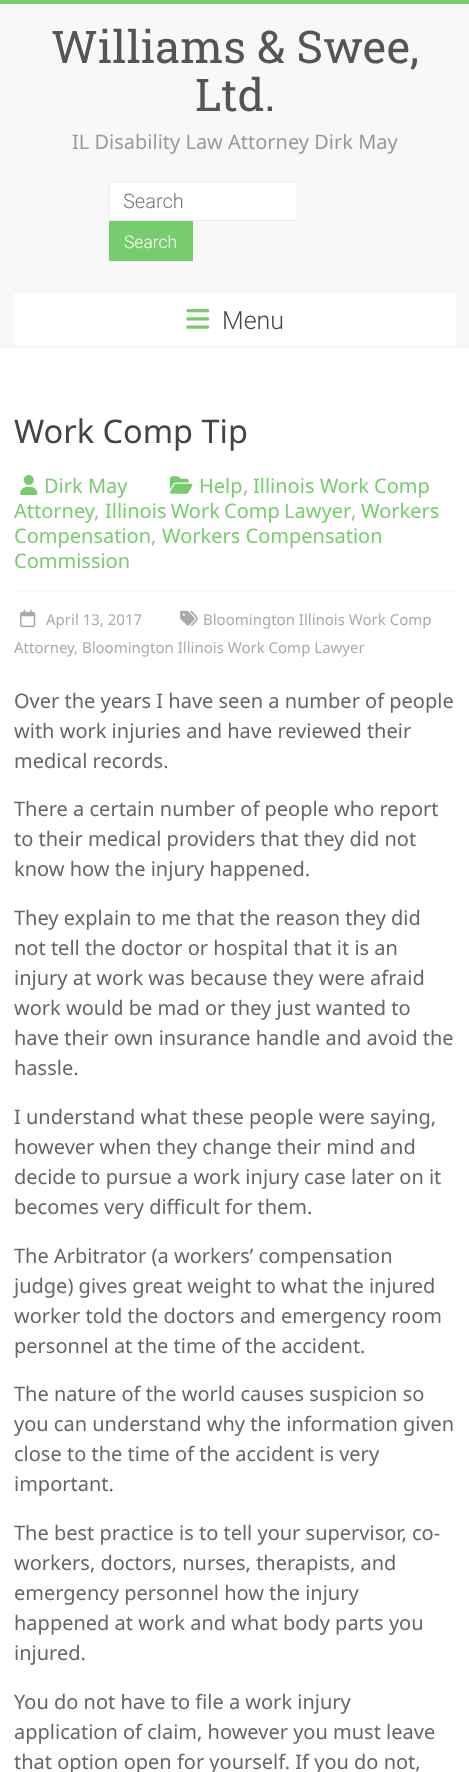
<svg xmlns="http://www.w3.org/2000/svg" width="469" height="1772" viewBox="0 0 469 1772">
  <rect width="100%" height="100%" fill="rgb(255,255,255)"/>
  <rect x="0" y="0" width="469" height="4" fill="rgb(119,204,109)"/>
  <rect x="0" y="4" width="469" height="344" fill="rgb(248,248,248)"/>
  <rect x="0" y="346" width="469" height="1" fill="rgb(242,242,242)"/>
  <g font-family="Roboto Slab" font-size="45" fill="rgb(85,85,85)">
    <text x="51" y="63">Williams &amp; Swee,</text>
    <text x="195" y="111">Ltd.</text>
  </g>
  <text x="72" y="149" font-family="Noto Sans" font-size="20" fill="rgb(153,153,153)">IL Disability Law Attorney Dirk May</text>
  <path d="M113 181H296V221H113C111 221 109 219 109 217V185C109 183 111 181 113 181Z" fill="rgb(255,255,255)"/>
  <path d="M112 181H296V221H112C110 221 109 220 109 218V185C109 183 110 181 112 181ZM112 182H296V220H112C111 220 110 219 110 218V185C110 184 111 182 112 182Z" fill="rgb(234,234,234)" fill-rule="evenodd"/>
  <text x="123" y="208" font-family="Roboto" font-size="20" font-weight="300" fill="rgb(117,117,117)">Search</text>
  <rect x="109" y="221" width="84" height="40" fill="rgb(119,204,109)"/>
  <text x="124" y="248" font-family="Roboto" font-size="17.5" font-weight="300" fill="rgb(255,255,255)">Search</text>
  <rect x="14" y="293" width="442" height="53" fill="rgb(255,255,255)"/>
  <image x="186" y="309" width="24" height="20" href="pic1.png"/>
  <text x="222" y="329" font-family="Roboto" font-size="25" font-weight="300" fill="rgb(68,68,68)">Menu</text>
  <text x="14" y="443" font-family="Noto Sans" font-size="32.5" fill="rgb(68,68,68)">Work Comp Tip</text>
  <image x="170" y="476" width="23" height="18" href="pic2.png"/>
  <text x="199" y="493" font-family="Noto Sans" font-size="20" fill="rgb(119,204,109)">Help</text>
  <text x="243" y="493" font-family="Noto Sans" font-size="20" fill="rgb(170,170,170)">,</text>
  <g font-family="Noto Sans" font-size="20" fill="rgb(119,204,109)">
    <text x="253" y="493">Illinois Work Comp</text>
    <text x="14" y="518">Attorney</text>
  </g>
  <text x="94" y="518" font-family="Noto Sans" font-size="20" fill="rgb(170,170,170)">,</text>
  <text x="105" y="518" word-spacing="-1" font-family="Noto Sans" font-size="20" fill="rgb(119,204,109)">Illinois Work Comp Lawyer</text>
  <text x="351" y="518" font-family="Noto Sans" font-size="20" fill="rgb(170,170,170)">,</text>
  <g font-family="Noto Sans" font-size="20" fill="rgb(119,204,109)">
    <text x="361" y="518">Workers</text>
    <text x="14" y="543">Compensation</text>
  </g>
  <text x="151" y="543" font-family="Noto Sans" font-size="20" fill="rgb(170,170,170)">,</text>
  <g font-family="Noto Sans" font-size="20" fill="rgb(119,204,109)">
    <text x="162" y="543">Workers Compensation</text>
    <text x="14" y="568">Commission</text>
  </g>
  <image x="20" y="475" width="18" height="20" href="pic3.png"/>
  <text x="44" y="493" font-family="Noto Sans" font-size="20" fill="rgb(119,204,109)">Dirk May</text>
  <rect x="14" y="591" width="442" height="1" fill="rgb(248,248,248)"/>
  <image x="180" y="610" width="18" height="16" href="pic4.png"/>
  <g font-family="Noto Sans" font-size="15" fill="rgb(170,170,170)">
    <text x="203" y="625">Bloomington Illinois Work Comp</text>
    <text x="14" y="653">Attorney</text>
    <text x="74" y="653">, Bloomington Illinois Work Comp Lawyer</text>
  </g>
  <image x="20" y="609" width="16" height="19" href="pic5.png"/>
  <text x="46" y="625" font-family="Noto Sans" font-size="15" fill="rgb(170,170,170)">April 13, 2017</text>
  <g font-family="Noto Sans" font-size="20" fill="rgb(102,102,102)">
    <text>
      <tspan x="14" y="708">Over the years I have seen a number of people</tspan>
      <tspan x="14" y="738">with work injuries and have reviewed their</tspan>
      <tspan x="14" y="768">medical records.</tspan>
    </text>
    <text>
      <tspan x="14" y="816">There a certain number of people who report</tspan>
      <tspan x="14" y="846">to their medical providers that they did not</tspan>
      <tspan x="14" y="876">know how the injury happened.</tspan>
    </text>
    <text>
      <tspan x="14" y="925">They explain to me that the reason they did</tspan>
      <tspan x="14" y="955">not tell the doctor or hospital that it is an</tspan>
      <tspan x="14" y="985">injury at work was because they were afraid</tspan>
      <tspan x="14" y="1015">work would be mad or they just wanted to</tspan>
      <tspan x="14" y="1045">have their own insurance handle and avoid the</tspan>
      <tspan x="14" y="1075">hassle.</tspan>
    </text>
    <text>
      <tspan x="14" y="1124">I understand what these people were saying,</tspan>
      <tspan x="14" y="1154">however when they change their mind and</tspan>
      <tspan x="14" y="1184">decide to pursue a work injury case later on it</tspan>
      <tspan x="14" y="1214">becomes very difficult for them.</tspan>
    </text>
    <text>
      <tspan x="14" y="1263">The Arbitrator (a workers’ compensation</tspan>
      <tspan x="14" y="1293">judge) gives great weight to what the injured</tspan>
      <tspan x="14" y="1323">worker told the doctors and emergency room</tspan>
      <tspan x="14" y="1353">personnel at the time of the accident.</tspan>
    </text>
    <text>
      <tspan x="14" y="1401">The nature of the world causes suspicion so</tspan>
      <tspan x="14" y="1431">you can understand why the information given</tspan>
      <tspan x="14" y="1461">close to the time of the accident is very</tspan>
      <tspan x="14" y="1491">important.</tspan>
    </text>
    <text>
      <tspan x="14" y="1540">The best practice is to tell your supervisor, co-</tspan>
      <tspan x="14" y="1570">workers, doctors, nurses, therapists, and</tspan>
      <tspan x="14" y="1600">emergency personnel how the injury</tspan>
      <tspan x="14" y="1630">happened at work and what body parts you</tspan>
      <tspan x="14" y="1660">injured.</tspan>
    </text>
    <text>
      <tspan x="14" y="1709">You do not have to file a work injury</tspan>
      <tspan x="14" y="1739">application of claim, however you must leave</tspan>
      <tspan x="14" y="1769">that option open for yourself. If you do not,</tspan>
    </text>
  </g>
</svg>
